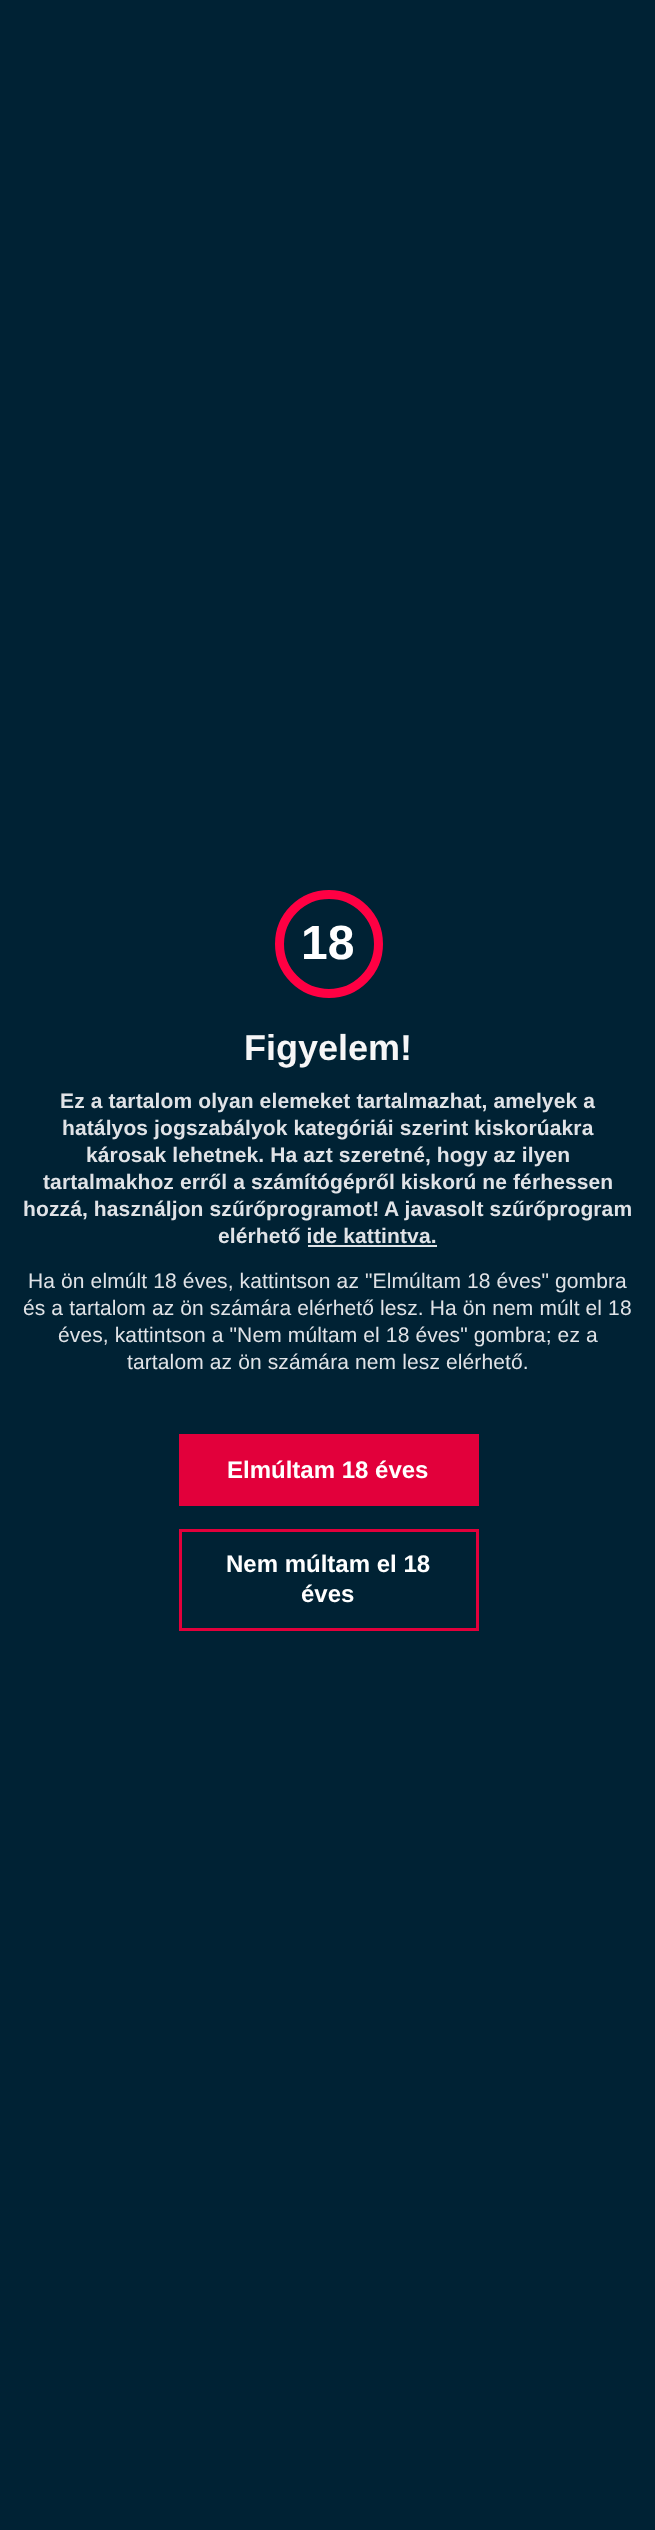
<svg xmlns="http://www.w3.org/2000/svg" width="655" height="2530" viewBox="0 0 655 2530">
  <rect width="100%" height="100%" fill="rgb(0,34,52)"/>
  <circle cx="329" cy="944" r="49.5" fill="none" stroke="rgb(255,0,67)" stroke-width="9"/>
  <text x="301" y="959" font-family="Liberation Sans" font-size="48" font-weight="bold" fill="rgb(255,255,255)">18</text>
  <text x="244" y="1060" font-family="Liberation Sans" font-size="36" font-weight="bold" fill="rgb(246,246,247)">Figyelem!</text>
  <g font-family="Liberation Sans" font-size="21" font-weight="bold" letter-spacing="0.12" fill="rgb(224,227,231)">
    <text x="60" y="1108">Ez a tartalom olyan elemeket tartalmazhat, amelyek a</text>
    <text x="62" y="1135">hatályos jogszabályok kategóriái szerint kiskorúakra</text>
    <text x="86" y="1162">károsak lehetnek. Ha azt szeretné, hogy az ilyen</text>
    <text x="43" y="1189">tartalmakhoz erről a számítógépről kiskorú ne férhessen</text>
    <text x="23" y="1216">hozzá, használjon szűrőprogramot!</text>
    <text x="384" y="1216">A javasolt szűrőprogram</text>
    <text x="218" y="1243">elérhető ide kattintva.</text>
  </g>
  <rect x="308" y="1245" width="129" height="2" fill="rgb(224,227,231)"/>
  <g font-family="Liberation Sans" font-size="21" letter-spacing="0.12" fill="rgb(224,227,231)">
    <text x="28" y="1288">Ha ön elmúlt 18 éves, kattintson az "Elmúltam 18 éves" gombra</text>
    <text x="23" y="1315">és a tartalom az ön számára elérhető lesz. Ha ön nem múlt el 18</text>
    <text x="58" y="1342">éves, kattintson a "Nem múltam el 18 éves" gombra; ez a</text>
    <text x="127" y="1369">tartalom az ön számára nem lesz elérhető.</text>
  </g>
  <rect x="179" y="1434" width="300" height="72" fill="rgb(226,0,59)"/>
  <text x="227" y="1478" font-family="Liberation Sans" font-size="24" font-weight="bold" fill="rgb(255,255,255)">Elmúltam 18 éves</text>
  <rect x="180.5" y="1530.5" width="297" height="99" fill="none" stroke="rgb(226,0,59)" stroke-width="3"/>
  <g font-family="Liberation Sans" font-size="24" font-weight="bold" fill="rgb(255,255,255)">
    <text x="226" y="1572">Nem múltam el 18</text>
    <text x="301" y="1602">éves</text>
  </g>
</svg>
